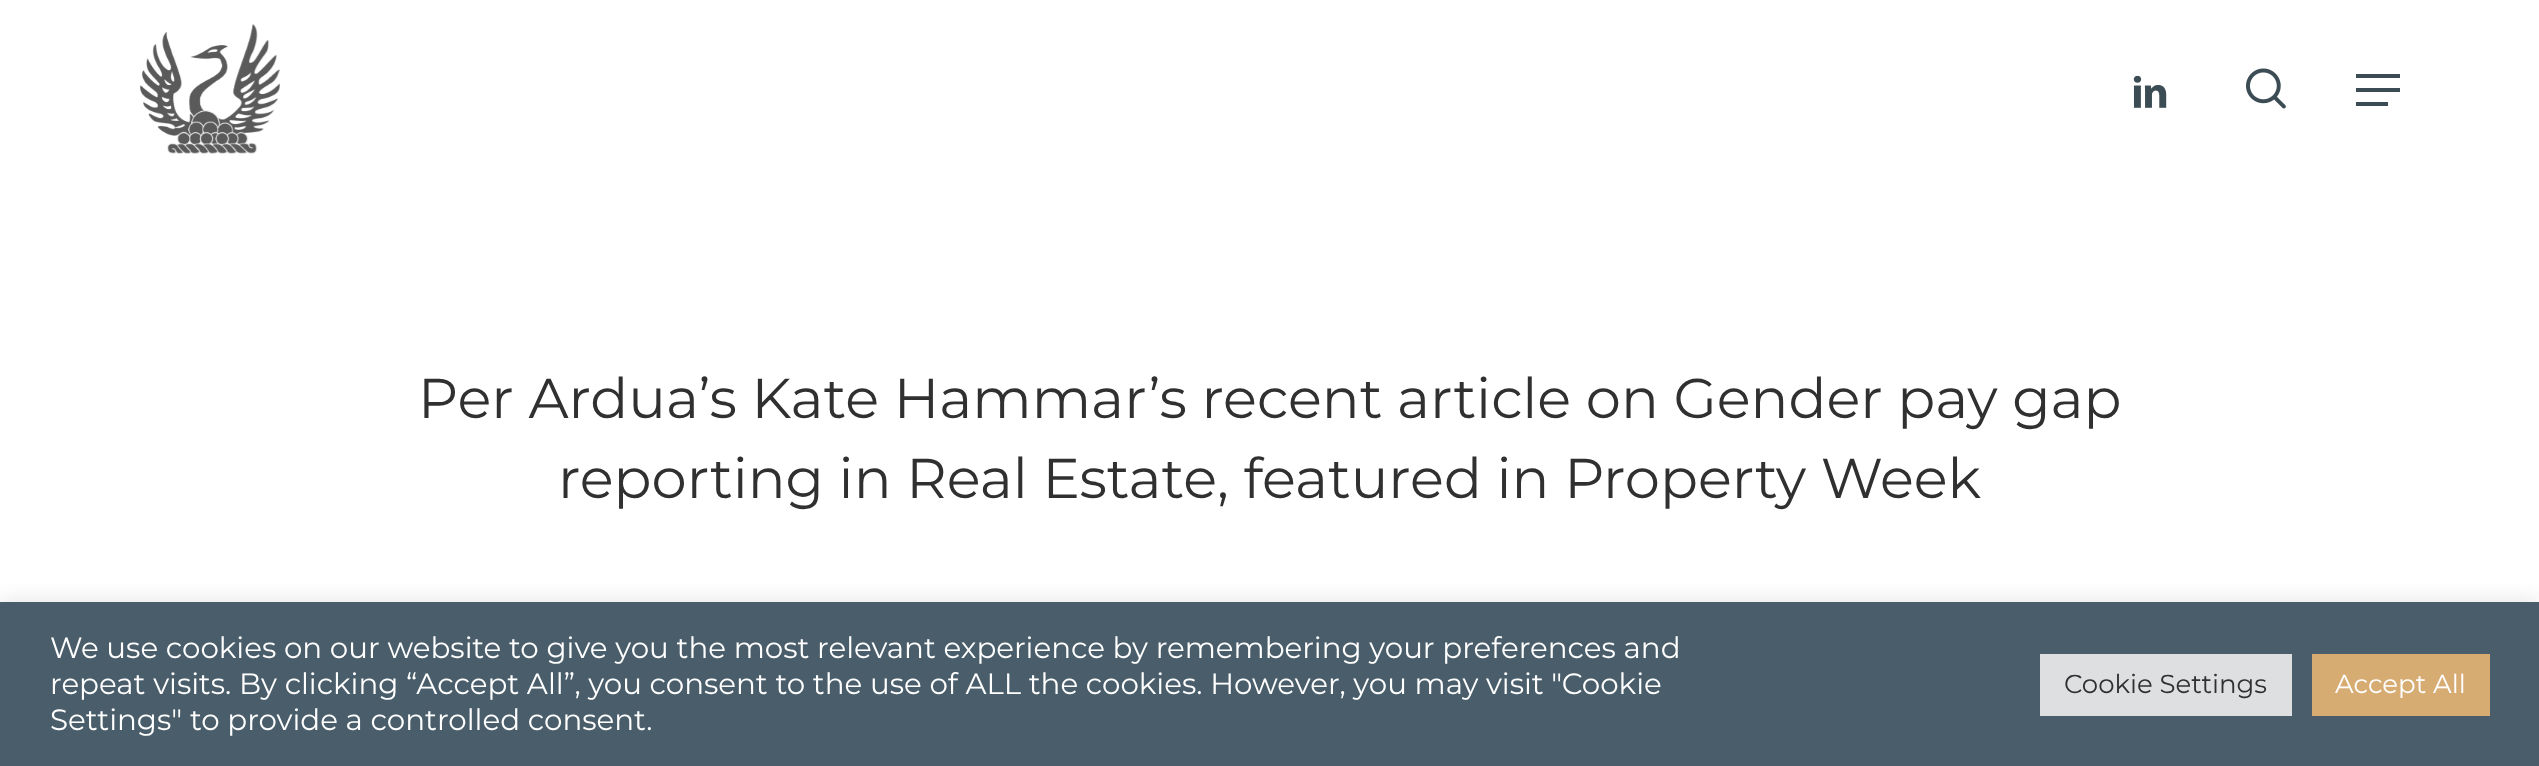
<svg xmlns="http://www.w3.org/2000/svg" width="2539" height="766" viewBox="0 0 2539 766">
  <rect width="100%" height="100%" fill="rgb(255,255,255)"/>
  <image x="140" y="24" width="140" height="130" href="pic1.png"/>
  <image x="2133" y="75" width="34" height="33" href="pic2.png"/>
  <image x="2246" y="68" width="40" height="41" href="pic3.png"/>
  <rect x="2356" y="74" width="44" height="4" fill="rgb(60,76,85)"/>
  <rect x="2356" y="102" width="32" height="4" fill="rgb(60,76,85)"/>
  <rect x="2356" y="88" width="44" height="4" fill="rgb(60,76,85)"/>
  <g font-family="Montserrat" font-size="56" fill="rgb(48,48,48)">
    <text x="418" y="418">Per Ardua’s Kate Hammar’s recent article on Gender pay gap</text>
    <text x="558" y="498">reporting in Real Estate, featured in Property Week</text>
  </g>
  <rect x="0" y="600" width="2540" height="164" fill="rgba(172,171,171,0.3)" filter="blur(10px)"/>
  <rect x="0" y="602" width="2539" height="164" fill="rgb(73,93,106)"/>
  <g font-family="Montserrat" font-size="29.33" fill="rgb(255,255,255)">
    <text>
      <tspan x="50" y="658">We use cookies on our website to give you the most relevant experience by remembering your preferences and</tspan>
      <tspan x="50" y="694">repeat visits. By clicking “Accept All”, you consent to the use of ALL the cookies. However, you may visit "Cookie</tspan>
      <tspan x="50" y="730">Settings" to provide a controlled consent.</tspan>
    </text>
  </g>
  <rect x="2040" y="654" width="252" height="62" fill="rgb(222,223,224)"/>
  <text x="2064" y="693" font-family="Montserrat" font-size="26" fill="rgb(48,48,48)">Cookie Settings</text>
  <rect x="2312" y="654" width="178" height="62" fill="rgb(215,172,115)"/>
  <text x="2335" y="693" font-family="Montserrat" font-size="26" fill="rgb(255,255,255)">Accept All</text>
</svg>
